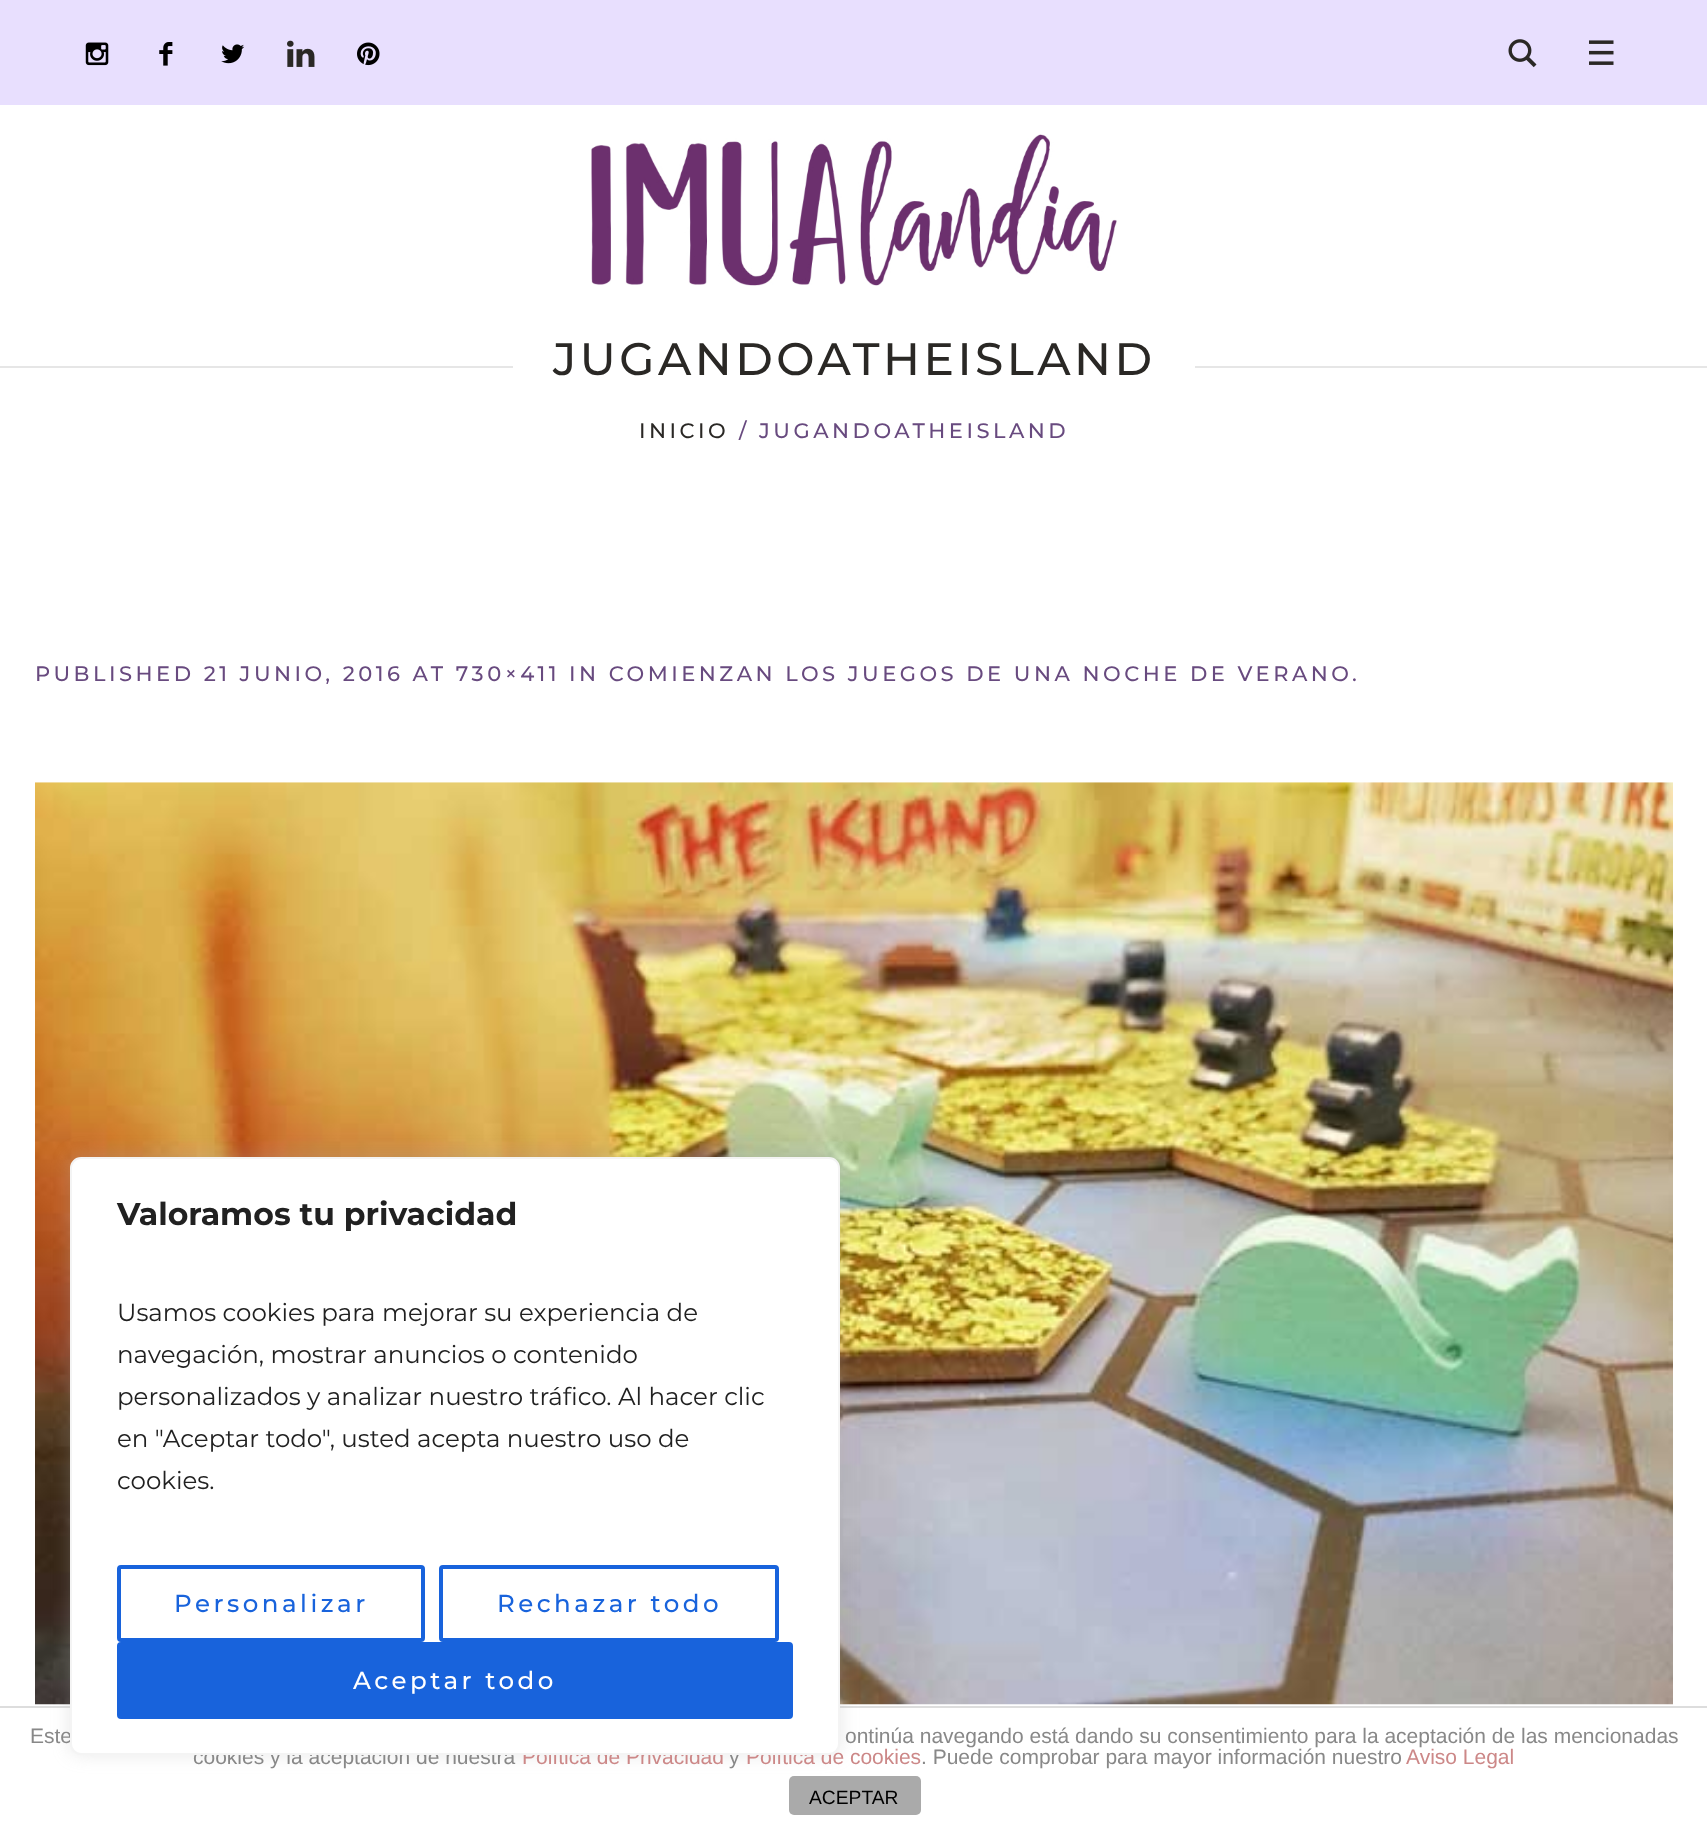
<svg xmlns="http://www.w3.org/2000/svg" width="1707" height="1824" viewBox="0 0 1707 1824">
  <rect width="100%" height="100%" fill="rgb(255,255,255)"/>
  <rect x="0" y="0" width="1707" height="105" fill="rgb(232,223,254)"/>
  <image x="85" y="42" width="24" height="24" href="pic1.png"/>
  <image x="159" y="42" width="14" height="24" href="pic2.png"/>
  <image x="221" y="44" width="24" height="20" href="pic3.png"/>
  <image x="287" y="40" width="28" height="27" href="pic4.png"/>
  <image x="357" y="42" width="23" height="24" href="pic5.png"/>
  <image x="1508" y="39" width="29" height="29" href="pic6.png"/>
  <image x="1589" y="40" width="25" height="25" href="pic7.png"/>
  <image x="591" y="134" width="526" height="152" href="pic8.png"/>
  <rect x="0" y="366" width="1707" height="2" fill="rgb(230,230,230)"/>
  <rect x="513" y="366" width="682" height="2" fill="rgb(255,255,255)"/>
  <text x="553" y="375" font-family="Montserrat" font-size="45.5" font-weight="500" letter-spacing="3.5" fill="rgb(42,40,37)">JUGANDOATHEISLAND</text>
  <text x="639" y="438" font-family="Montserrat" font-size="21" font-weight="500" letter-spacing="3.5" fill="rgb(42,40,37)">INICIO</text>
  <g font-family="Montserrat" font-size="21" font-weight="500" letter-spacing="3.5" fill="rgb(104,74,127)">
    <text x="739" y="438">/ JUGANDOATHEISLAND</text>
    <text x="35" y="681">PUBLISHED 21 JUNIO, 2016 AT 730×411 IN COMIENZAN LOS JUEGOS DE UNA NOCHE DE VERANO</text>
    <text x="1352" y="681">.</text>
  </g>
  <image x="35" y="782" width="1638" height="923" href="pic9.png"/>
  <rect x="0" y="1706" width="1707" height="2" fill="rgb(221,221,221)"/>
  <rect x="789" y="1776" width="132" height="39" rx="5" fill="rgb(170,170,170)"/>
  <rect x="70" y="1155" width="770" height="599" rx="11" fill="rgba(172,171,171,0.3)" filter="blur(9px)"/>
  <g font-family="Liberation Sans" font-size="21" fill="rgb(136,136,136)">
    <text x="30" y="1743">Este</text>
    <text x="193" y="1764">cookies y la aceptación de nuestra</text>
  </g>
  <text x="522" y="1764" font-family="Liberation Sans" font-size="21" fill="rgb(204,136,136)">Política de Privacidad</text>
  <text x="729" y="1764" font-family="Liberation Sans" font-size="21" fill="rgb(136,136,136)">y</text>
  <text x="746" y="1764" font-family="Liberation Sans" font-size="21" fill="rgb(204,136,136)">Política de cookies</text>
  <rect x="71" y="1158" width="768" height="596" rx="10" fill="rgb(255,255,255)" stroke="rgb(244,244,244)" stroke-width="2"/>
  <text x="117" y="1225" font-family="Montserrat" font-size="31.5" font-weight="bold" fill="rgb(33,33,33)">Valoramos tu privacidad</text>
  <g font-family="Montserrat" font-size="24.5" fill="rgb(33,33,33)">
    <text>
      <tspan x="117" y="1321">Usamos cookies para mejorar su experiencia de</tspan>
      <tspan x="117" y="1363">navegación, mostrar anuncios o contenido</tspan>
      <tspan x="117" y="1405">personalizados y analizar nuestro tráfico. Al hacer clic</tspan>
      <tspan x="117" y="1447">en "Aceptar todo", usted acepta nuestro uso de</tspan>
      <tspan x="117" y="1489">cookies.</tspan>
    </text>
  </g>
  <rect x="119" y="1567" width="304" height="73" rx="2" fill="none" stroke="rgb(24,99,220)" stroke-width="4"/>
  <text x="174" y="1612" font-family="Montserrat" font-size="24.5" font-weight="500" letter-spacing="3.5" fill="rgb(24,99,220)">Personalizar</text>
  <rect x="441" y="1567" width="336" height="73" rx="2" fill="none" stroke="rgb(24,99,220)" stroke-width="4"/>
  <text x="497" y="1612" font-family="Montserrat" font-size="24.5" font-weight="500" letter-spacing="3.5" fill="rgb(24,99,220)">Rechazar todo</text>
  <rect x="119" y="1644" width="672" height="73" rx="2" fill="rgb(24,99,220)" stroke="rgb(24,99,220)" stroke-width="4"/>
  <text x="353" y="1689" font-family="Montserrat" font-size="24.5" font-weight="500" letter-spacing="3.5" fill="rgb(255,255,255)">Aceptar todo</text>
  <g font-family="Liberation Sans" font-size="21" fill="rgb(136,136,136)">
    <text x="845" y="1743">ontinúa navegando está dando su consentimiento para la aceptación de las mencionadas</text>
    <text x="921" y="1764">. Puede comprobar para mayor información nuestro</text>
  </g>
  <text x="1406" y="1764" font-family="Liberation Sans" font-size="21" fill="rgb(204,136,136)">Aviso Legal</text>
  <text x="809" y="1804" font-family="Liberation Sans" font-size="19.25" fill="rgb(0,0,0)">ACEPTAR</text>
</svg>
